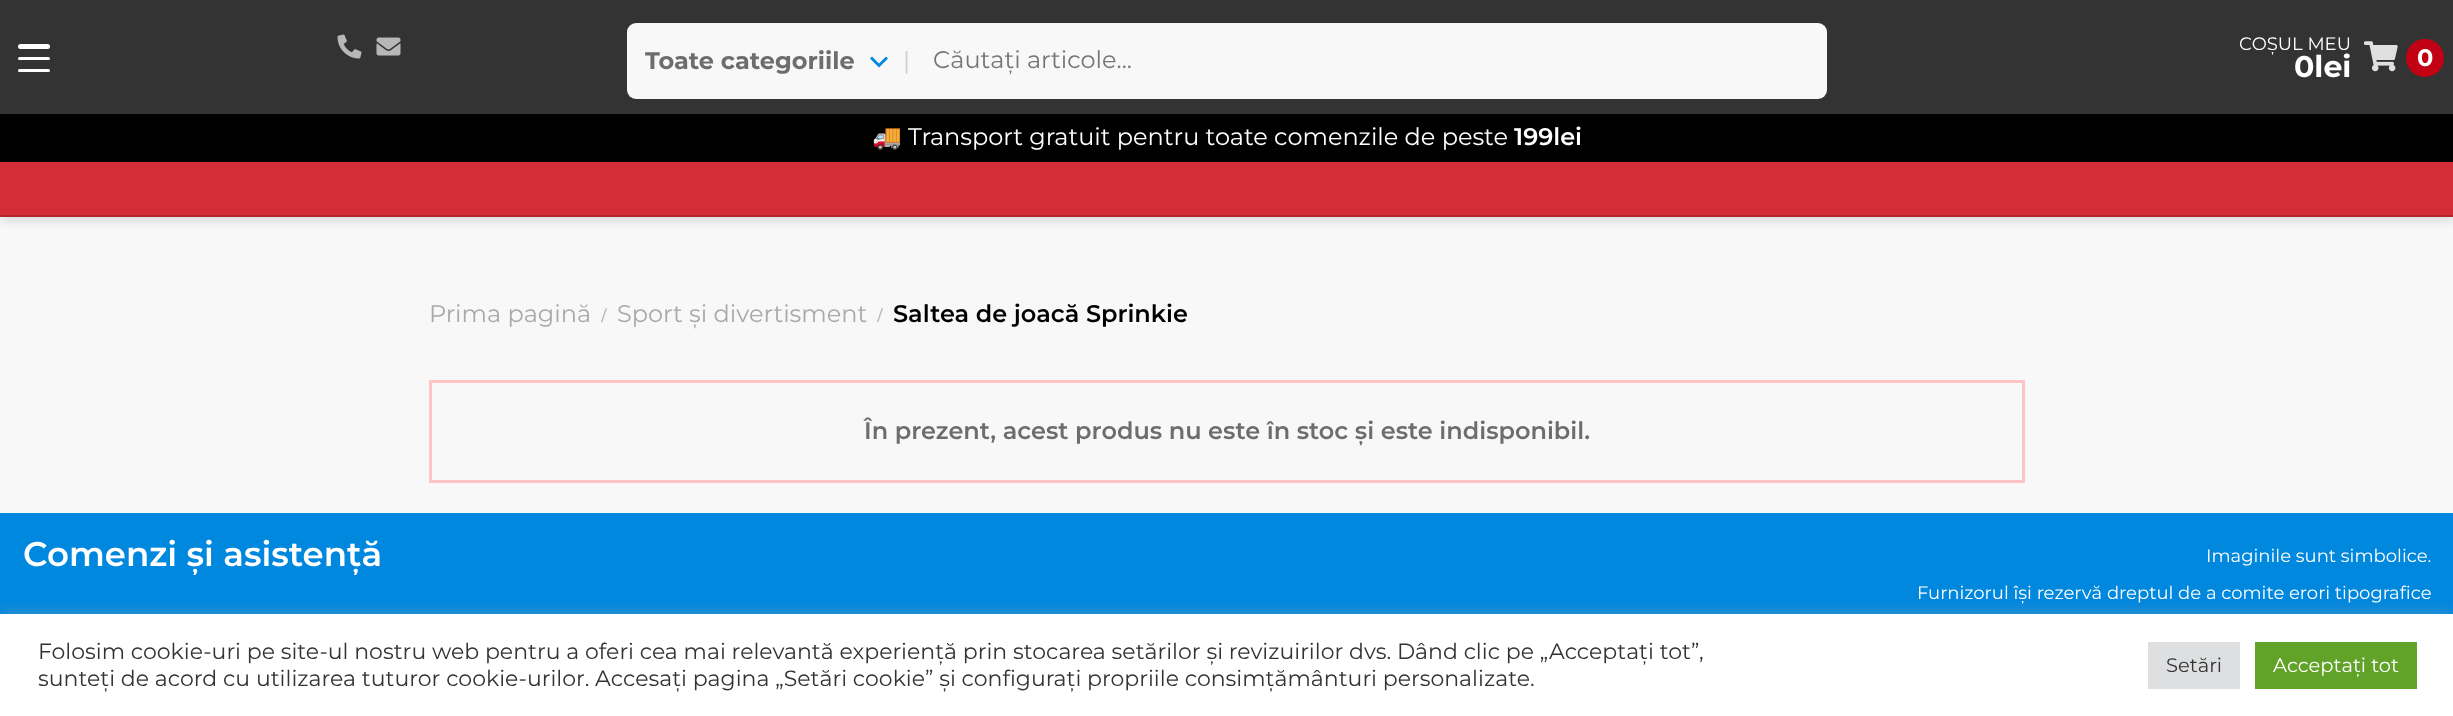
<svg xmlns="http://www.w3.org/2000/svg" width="2453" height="716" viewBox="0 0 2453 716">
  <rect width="100%" height="100%" fill="rgb(248,248,248)"/>
  <rect x="0" y="6" width="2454" height="216" fill="rgba(0,0,0,0.1)" filter="blur(4px)"/>
  <rect x="0" y="0" width="2453" height="114" fill="rgb(51,51,51)"/>
  <text x="2239" y="50" font-family="Montserrat" font-size="18" fill="rgb(255,255,255)">COȘUL MEU</text>
  <image x="2364" y="41" width="34" height="31" href="pic1.png"/>
  <text x="2294" y="77" font-family="Montserrat" font-size="30" font-weight="bold" fill="rgb(255,255,255)">0lei</text>
  <rect x="0" y="215" width="2453" height="2" fill="rgb(179,36,46)"/>
  <rect x="18" y="44" width="32" height="5" rx="2.5" fill="rgb(255,255,255)"/>
  <rect x="18" y="57" width="32" height="3" rx="1.5" fill="rgb(255,255,255)"/>
  <rect x="18" y="69" width="32" height="3" rx="1.5" fill="rgb(255,255,255)"/>
  <image x="337" y="34" width="25" height="25" href="pic2.png"/>
  <image x="376" y="37" width="25" height="19" href="pic3.png"/>
  <rect x="627" y="23" width="1200" height="76" rx="9" fill="rgb(248,248,248)"/>
  <text x="645" y="69" font-family="Montserrat" font-size="24" font-weight="bold" fill="rgb(109,109,109)">Toate categoriile</text>
  <path d="M872 56.5L879 63.5L886 56.5L888 58.5L879 67.5L870 58.5Z" fill="rgb(0,135,222)"/>
  <text x="903" y="69" font-family="Montserrat" font-size="24" fill="rgb(204,204,204)">|</text>
  <text x="933" y="68" font-family="Montserrat" font-size="24" fill="rgb(117,117,117)">Căutați articole...</text>
  <circle cx="2425" cy="58" r="19" fill="rgb(194,1,20)"/>
  <text x="2417" y="66" font-family="Montserrat" font-size="24" font-weight="bold" fill="rgb(255,255,255)">0</text>
  <rect x="0" y="114" width="2453" height="48" fill="rgb(0,0,0)"/>
  <text x="872" y="145" font-family="Noto Color Emoji" font-size="24" fill="rgb(255,255,255)">🚚</text>
  <text x="908" y="145" font-family="Montserrat" font-size="24" fill="rgb(255,255,255)">Transport gratuit pentru toate comenzile de peste</text>
  <text x="1514" y="145" font-family="Montserrat" font-size="24" font-weight="600" fill="rgb(255,255,255)">199lei</text>
  <rect x="0" y="162" width="2453" height="53" fill="rgb(212,45,56)"/>
  <text x="429" y="322" font-family="Montserrat" font-size="24" fill="rgb(169,169,169)">Prima pagină</text>
  <text x="601" y="322" font-family="Liberation Serif" font-size="21" font-weight="bold" fill="rgb(186,186,186)">/</text>
  <text x="617" y="322" font-family="Montserrat" font-size="24" fill="rgb(169,169,169)">Sport și divertisment</text>
  <text x="877" y="322" font-family="Liberation Serif" font-size="21" font-weight="bold" fill="rgb(186,186,186)">/</text>
  <text x="893" y="322" font-family="Montserrat" font-size="24" font-weight="600" fill="rgb(0,0,0)">Saltea de joacă Sprinkie</text>
  <rect x="430.5" y="381.5" width="1593" height="100" fill="none" stroke="rgb(255,197,197)" stroke-width="3"/>
  <text x="864" y="439" font-family="Montserrat" font-size="24" font-weight="600" fill="rgb(109,109,109)">În prezent, acest produs nu este în stoc și este indisponibil.</text>
  <rect x="0" y="513" width="2453" height="101" fill="rgb(0,135,222)"/>
  <text x="23" y="566" font-family="Montserrat" font-size="34" font-weight="600" fill="rgb(255,255,255)">Comenzi și asistență</text>
  <g font-family="Montserrat" font-size="18" fill="rgb(255,255,255)">
    <text x="2206" y="562">Imaginile sunt simbolice.</text>
    <text x="1917" y="599">Furnizorul își rezervă dreptul de a comite erori tipografice</text>
  </g>
  <rect x="0" y="612" width="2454" height="104" fill="rgba(172,171,171,0.3)" filter="blur(7.5px)"/>
  <rect x="0" y="614" width="2453" height="102" fill="rgb(255,255,255)"/>
  <g font-family="Montserrat" font-size="22" fill="rgb(51,51,51)">
    <text>
      <tspan x="38" y="659">Folosim cookie-uri pe site-ul nostru web pentru a oferi cea mai relevantă experiență prin stocarea setărilor și revizuirilor dvs. Dând clic pe „Acceptați tot”,</tspan>
      <tspan x="38" y="686">sunteți de acord cu utilizarea tuturor cookie-urilor. Accesați pagina „Setări cookie” și configurați propriile consimțământuri personalizate.</tspan>
    </text>
  </g>
  <rect x="2148" y="642" width="92" height="47" fill="rgb(222,223,224)"/>
  <text x="2166" y="672" font-family="Montserrat" font-size="19.5" fill="rgb(51,51,51)">Setări</text>
  <rect x="2255" y="642" width="162" height="47" fill="rgb(97,162,41)"/>
  <text x="2273" y="672" font-family="Montserrat" font-size="19.5" fill="rgb(255,255,255)">Acceptați tot</text>
</svg>
